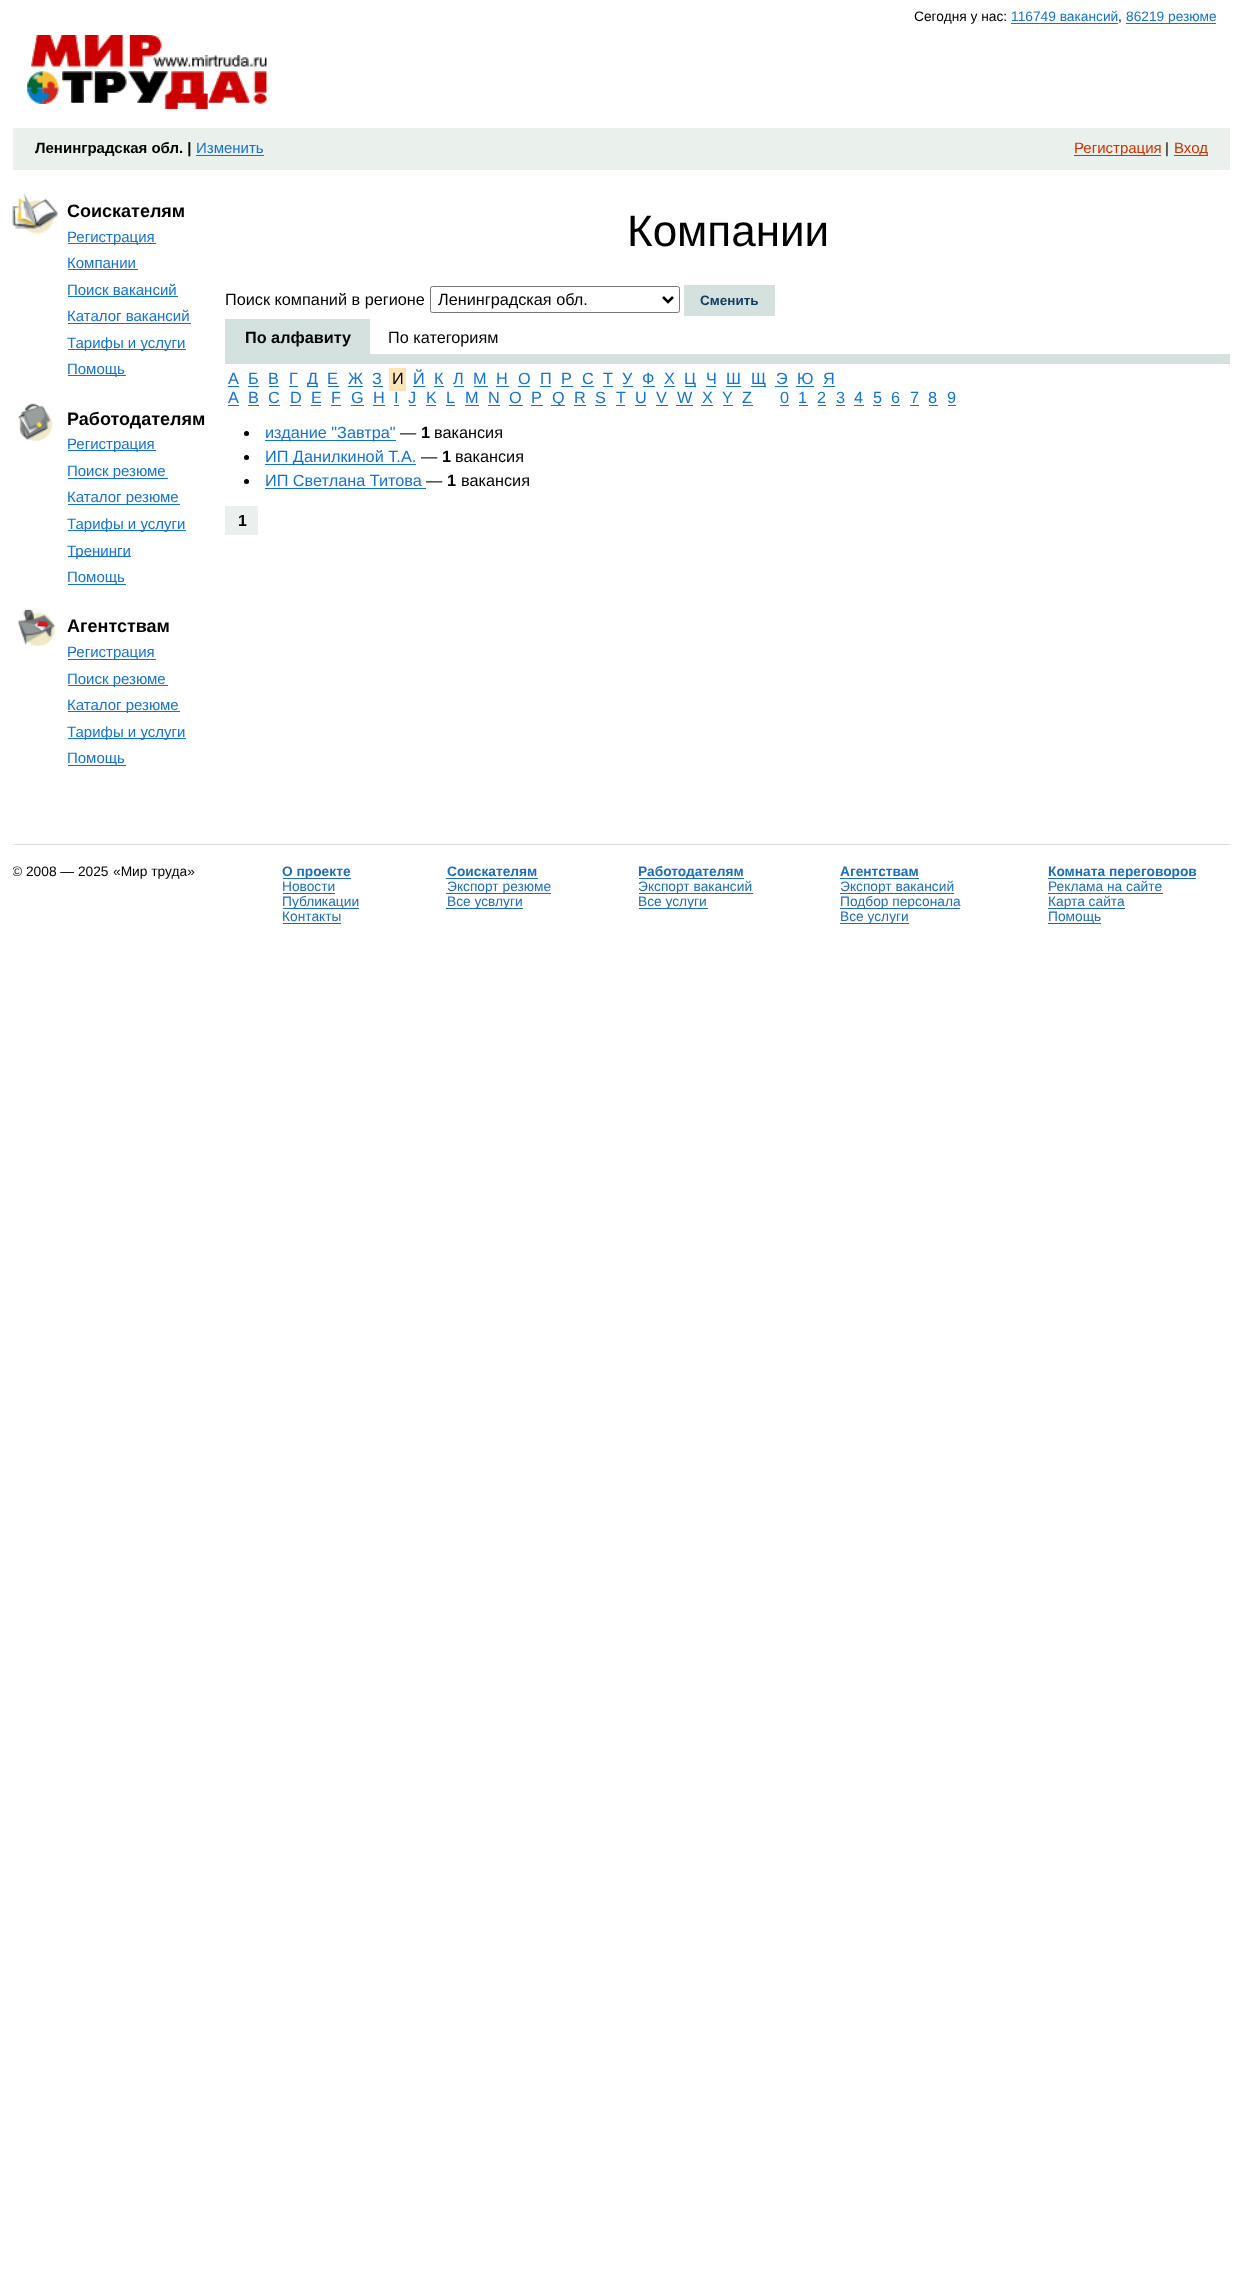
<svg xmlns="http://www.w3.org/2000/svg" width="1248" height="2270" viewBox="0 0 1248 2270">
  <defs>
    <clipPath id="clip1"><rect x="13" y="825" width="1217" height="164"/></clipPath>
  </defs>
  <rect width="100%" height="100%" fill="rgb(255,255,255)"/>
  <text x="914" y="21" font-family="Liberation Sans" font-size="13.75" fill="rgb(0,0,0)">Сегодня у нас:</text>
  <text x="1011" y="21" font-family="Liberation Sans" font-size="13.75" fill="rgb(20,115,210)">116749 вакансий</text>
  <rect x="1011" y="23" width="107" height="1" fill="rgb(20,115,210)"/>
  <text x="1118" y="21" font-family="Liberation Sans" font-size="13.75" fill="rgb(0,0,0)">,</text>
  <rect x="1126" y="23" width="90" height="1" fill="rgb(20,115,210)"/>
  <text x="1126" y="21" font-family="Liberation Sans" font-size="13.75" fill="rgb(20,115,210)">86219 резюме</text>
  <image x="27" y="35" width="240" height="74" href="pic1.png"/>
  <image x="27" y="35" width="240" height="74" href="pic2.png"/>
  <rect x="13" y="128" width="1217" height="42" fill="rgb(234,240,236)"/>
  <text x="35" y="153" font-family="Liberation Sans" font-size="15" font-weight="bold" fill="rgb(0,0,0)">Ленинградская обл. |</text>
  <text x="196" y="153" font-family="Liberation Sans" font-size="15" fill="rgb(20,115,210)">Изменить</text>
  <rect x="196" y="155" width="68" height="1" fill="rgb(20,115,210)"/>
  <rect x="1074" y="155" width="87" height="1" fill="rgb(210,49,0)"/>
  <text x="1074" y="153" font-family="Liberation Sans" font-size="15" fill="rgb(210,49,0)">Регистрация</text>
  <text x="1165" y="153" font-family="Liberation Sans" font-size="15" fill="rgb(0,0,0)">|</text>
  <rect x="1174" y="155" width="34" height="1" fill="rgb(210,49,0)"/>
  <text x="1174" y="153" font-family="Liberation Sans" font-size="15" fill="rgb(210,49,0)">Вход</text>
  <image x="12" y="193" width="46" height="41" href="pic3.png"/>
  <text x="67" y="217" font-family="Liberation Sans" font-size="18" font-weight="bold" fill="rgb(0,0,0)">Соискателям</text>
  <rect x="68" y="243" width="88" height="1" fill="rgb(20,115,210)"/>
  <g font-family="Liberation Sans" font-size="15" fill="rgb(20,115,210)">
    <text>
      <tspan x="67" y="242">Регистрация</tspan>
      <tspan x="67" y="268">Компании</tspan>
    </text>
  </g>
  <rect x="68" y="269" width="70" height="1" fill="rgb(20,115,210)"/>
  <text x="67" y="295" font-family="Liberation Sans" font-size="15" fill="rgb(20,115,210)">Поиск вакансий</text>
  <rect x="68" y="296" width="110" height="1" fill="rgb(20,115,210)"/>
  <text x="67" y="321" font-family="Liberation Sans" font-size="15" fill="rgb(20,115,210)">Каталог вакансий</text>
  <rect x="68" y="323" width="123" height="1" fill="rgb(20,115,210)"/>
  <rect x="68" y="349" width="118" height="1" fill="rgb(20,115,210)"/>
  <text x="67" y="348" font-family="Liberation Sans" font-size="15" fill="rgb(20,115,210)">Тарифы и услуги</text>
  <rect x="68" y="375" width="58" height="1" fill="rgb(20,115,210)"/>
  <text x="67" y="374" font-family="Liberation Sans" font-size="15" fill="rgb(20,115,210)">Помощь</text>
  <image x="18" y="403" width="35" height="39" href="pic4.png"/>
  <text x="67" y="425" font-family="Liberation Sans" font-size="18" font-weight="bold" fill="rgb(0,0,0)">Работодателям</text>
  <rect x="68" y="450" width="88" height="1" fill="rgb(20,115,210)"/>
  <text x="67" y="449" font-family="Liberation Sans" font-size="15" fill="rgb(20,115,210)">Регистрация</text>
  <rect x="68" y="478" width="100" height="1" fill="rgb(20,115,210)"/>
  <text x="67" y="476" font-family="Liberation Sans" font-size="15" fill="rgb(20,115,210)">Поиск резюме</text>
  <rect x="68" y="504" width="112" height="1" fill="rgb(20,115,210)"/>
  <text x="67" y="502" font-family="Liberation Sans" font-size="15" fill="rgb(20,115,210)">Каталог резюме</text>
  <rect x="68" y="530" width="118" height="1" fill="rgb(20,115,210)"/>
  <text x="67" y="529" font-family="Liberation Sans" font-size="15" fill="rgb(20,115,210)">Тарифы и услуги</text>
  <rect x="68" y="556" width="63" height="1" fill="rgb(20,115,210)"/>
  <text x="67" y="556" font-family="Liberation Sans" font-size="15" fill="rgb(20,115,210)">Тренинги</text>
  <rect x="68" y="584" width="58" height="1" fill="rgb(20,115,210)"/>
  <text x="67" y="582" font-family="Liberation Sans" font-size="15" fill="rgb(20,115,210)">Помощь</text>
  <image x="17" y="609" width="38" height="38" href="pic5.png"/>
  <text x="67" y="632" font-family="Liberation Sans" font-size="18" font-weight="bold" fill="rgb(0,0,0)">Агентствам</text>
  <rect x="68" y="659" width="88" height="1" fill="rgb(20,115,210)"/>
  <text x="67" y="657" font-family="Liberation Sans" font-size="15" fill="rgb(20,115,210)">Регистрация</text>
  <rect x="68" y="685" width="100" height="1" fill="rgb(20,115,210)"/>
  <text x="67" y="684" font-family="Liberation Sans" font-size="15" fill="rgb(20,115,210)">Поиск резюме</text>
  <rect x="68" y="711" width="112" height="1" fill="rgb(20,115,210)"/>
  <text x="67" y="710" font-family="Liberation Sans" font-size="15" fill="rgb(20,115,210)">Каталог резюме</text>
  <rect x="68" y="738" width="118" height="1" fill="rgb(20,115,210)"/>
  <text x="67" y="737" font-family="Liberation Sans" font-size="15" fill="rgb(20,115,210)">Тарифы и услуги</text>
  <rect x="68" y="765" width="58" height="1" fill="rgb(20,115,210)"/>
  <text x="67" y="763" font-family="Liberation Sans" font-size="15" fill="rgb(20,115,210)">Помощь</text>
  <text x="627" y="246" font-family="Liberation Sans" font-size="44" fill="rgb(0,0,0)">Компании</text>
  <text x="225" y="305" font-family="Liberation Sans" font-size="16.25" fill="rgb(0,0,0)">Поиск компаний в регионе</text>
  <rect x="430.5" y="286.5" width="249" height="26" rx="2" fill="none" stroke="rgb(118,118,118)"/>
  <path d="M663 297L668 302L673 297" fill="none" stroke="rgb(0,0,0)" stroke-width="2.5"/>
  <text x="438" y="305" font-family="Liberation Sans" font-size="16.25" fill="rgb(0,0,0)">Ленинградская обл.</text>
  <rect x="684" y="285" width="91" height="31" fill="rgb(213,225,222)"/>
  <text x="700" y="305" font-family="Liberation Sans" font-size="13.5" font-weight="bold" fill="rgb(21,60,97)">Сменить</text>
  <rect x="225" y="354" width="1005" height="10" fill="rgb(213,225,222)"/>
  <rect x="225" y="319" width="145" height="35" fill="rgb(213,225,222)"/>
  <text x="245" y="343" font-family="Liberation Sans" font-size="16.25" font-weight="bold" fill="rgb(0,0,0)">По алфавиту</text>
  <text x="388" y="343" font-family="Liberation Sans" font-size="16.25" fill="rgb(0,0,0)">По категориям</text>
  <text x="228" y="384" font-family="Liberation Sans" font-size="16.25" fill="rgb(20,115,210)">А</text>
  <rect x="228" y="386" width="11" height="1" fill="rgb(20,115,210)"/>
  <text x="248" y="384" font-family="Liberation Sans" font-size="16.25" fill="rgb(20,115,210)">Б</text>
  <rect x="248" y="386" width="11" height="1" fill="rgb(20,115,210)"/>
  <text x="268" y="384" font-family="Liberation Sans" font-size="16.25" fill="rgb(20,115,210)">В</text>
  <rect x="269" y="386" width="10" height="1" fill="rgb(20,115,210)"/>
  <text x="289" y="384" font-family="Liberation Sans" font-size="16.25" fill="rgb(20,115,210)">Г</text>
  <rect x="289" y="386" width="9" height="1" fill="rgb(20,115,210)"/>
  <rect x="308" y="386" width="10" height="1" fill="rgb(20,115,210)"/>
  <g font-family="Liberation Sans" font-size="16.25" fill="rgb(20,115,210)">
    <text x="307" y="384">Д</text>
    <text x="327" y="384">Е</text>
  </g>
  <rect x="328" y="386" width="11" height="1" fill="rgb(20,115,210)"/>
  <text x="348" y="384" font-family="Liberation Sans" font-size="16.25" fill="rgb(20,115,210)">Ж</text>
  <rect x="348" y="386" width="15" height="1" fill="rgb(20,115,210)"/>
  <text x="372" y="384" font-family="Liberation Sans" font-size="16.25" fill="rgb(20,115,210)">З</text>
  <rect x="373" y="386" width="10" height="1" fill="rgb(20,115,210)"/>
  <rect x="389" y="368" width="17" height="23" fill="rgb(252,230,182)"/>
  <text x="392" y="384" font-family="Liberation Sans" font-size="16.25" fill="rgb(0,0,0)">И</text>
  <text x="413" y="384" font-family="Liberation Sans" font-size="16.25" fill="rgb(20,115,210)">Й</text>
  <rect x="413" y="386" width="12" height="1" fill="rgb(20,115,210)"/>
  <text x="434" y="384" font-family="Liberation Sans" font-size="16.25" fill="rgb(20,115,210)">К</text>
  <rect x="434" y="386" width="10" height="1" fill="rgb(20,115,210)"/>
  <text x="453" y="384" font-family="Liberation Sans" font-size="16.25" fill="rgb(20,115,210)">Л</text>
  <rect x="454" y="386" width="10" height="1" fill="rgb(20,115,210)"/>
  <text x="473" y="384" font-family="Liberation Sans" font-size="16.25" fill="rgb(20,115,210)">М</text>
  <rect x="474" y="386" width="14" height="1" fill="rgb(20,115,210)"/>
  <text x="496" y="384" font-family="Liberation Sans" font-size="16.25" fill="rgb(20,115,210)">Н</text>
  <rect x="496" y="386" width="13" height="1" fill="rgb(20,115,210)"/>
  <text x="518" y="384" font-family="Liberation Sans" font-size="16.25" fill="rgb(20,115,210)">О</text>
  <rect x="518" y="386" width="12" height="1" fill="rgb(20,115,210)"/>
  <text x="540" y="384" font-family="Liberation Sans" font-size="16.25" fill="rgb(20,115,210)">П</text>
  <rect x="540" y="386" width="11" height="1" fill="rgb(20,115,210)"/>
  <text x="561" y="384" font-family="Liberation Sans" font-size="16.25" fill="rgb(20,115,210)">Р</text>
  <rect x="561" y="386" width="12" height="1" fill="rgb(20,115,210)"/>
  <text x="582" y="384" font-family="Liberation Sans" font-size="16.25" fill="rgb(20,115,210)">С</text>
  <rect x="581" y="386" width="13" height="1" fill="rgb(20,115,210)"/>
  <text x="603" y="384" font-family="Liberation Sans" font-size="16.25" fill="rgb(20,115,210)">Т</text>
  <rect x="603" y="386" width="10" height="1" fill="rgb(20,115,210)"/>
  <text x="622" y="384" font-family="Liberation Sans" font-size="16.25" fill="rgb(20,115,210)">У</text>
  <rect x="623" y="386" width="10" height="1" fill="rgb(20,115,210)"/>
  <text x="642" y="384" font-family="Liberation Sans" font-size="16.25" fill="rgb(20,115,210)">Ф</text>
  <rect x="643" y="386" width="12" height="1" fill="rgb(20,115,210)"/>
  <text x="664" y="384" font-family="Liberation Sans" font-size="16.25" fill="rgb(20,115,210)">Х</text>
  <rect x="664" y="386" width="11" height="1" fill="rgb(20,115,210)"/>
  <rect x="685" y="386" width="11" height="1" fill="rgb(20,115,210)"/>
  <g font-family="Liberation Sans" font-size="16.25" fill="rgb(20,115,210)">
    <text x="684" y="384">Ц</text>
    <text x="706" y="384">Ч</text>
  </g>
  <rect x="706" y="386" width="10" height="1" fill="rgb(20,115,210)"/>
  <text x="726" y="384" font-family="Liberation Sans" font-size="16.25" fill="rgb(20,115,210)">Ш</text>
  <rect x="726" y="386" width="15" height="1" fill="rgb(20,115,210)"/>
  <rect x="751" y="386" width="15" height="1" fill="rgb(20,115,210)"/>
  <g font-family="Liberation Sans" font-size="16.25" fill="rgb(20,115,210)">
    <text x="751" y="384">Щ</text>
    <text x="776" y="384">Э</text>
  </g>
  <rect x="775" y="386" width="13" height="1" fill="rgb(20,115,210)"/>
  <text x="797" y="384" font-family="Liberation Sans" font-size="16.25" fill="rgb(20,115,210)">Ю</text>
  <rect x="796" y="386" width="18" height="1" fill="rgb(20,115,210)"/>
  <text x="823" y="384" font-family="Liberation Sans" font-size="16.25" fill="rgb(20,115,210)">Я</text>
  <rect x="823" y="386" width="12" height="1" fill="rgb(20,115,210)"/>
  <text x="228" y="403" font-family="Liberation Sans" font-size="16.25" fill="rgb(20,115,210)">A</text>
  <rect x="228" y="405" width="11" height="1" fill="rgb(20,115,210)"/>
  <text x="248" y="403" font-family="Liberation Sans" font-size="16.25" fill="rgb(20,115,210)">B</text>
  <rect x="248" y="405" width="11" height="1" fill="rgb(20,115,210)"/>
  <text x="268" y="403" font-family="Liberation Sans" font-size="16.25" fill="rgb(20,115,210)">C</text>
  <rect x="269" y="405" width="11" height="1" fill="rgb(20,115,210)"/>
  <text x="290" y="403" font-family="Liberation Sans" font-size="16.25" fill="rgb(20,115,210)">D</text>
  <rect x="290" y="405" width="11" height="1" fill="rgb(20,115,210)"/>
  <text x="311" y="403" font-family="Liberation Sans" font-size="16.25" fill="rgb(20,115,210)">E</text>
  <rect x="311" y="405" width="10" height="1" fill="rgb(20,115,210)"/>
  <text x="331" y="403" font-family="Liberation Sans" font-size="16.25" fill="rgb(20,115,210)">F</text>
  <rect x="331" y="405" width="10" height="1" fill="rgb(20,115,210)"/>
  <text x="351" y="403" font-family="Liberation Sans" font-size="16.25" fill="rgb(20,115,210)">G</text>
  <rect x="351" y="405" width="13" height="1" fill="rgb(20,115,210)"/>
  <text x="373" y="403" font-family="Liberation Sans" font-size="16.25" fill="rgb(20,115,210)">H</text>
  <rect x="373" y="405" width="12" height="1" fill="rgb(20,115,210)"/>
  <text x="394" y="403" font-family="Liberation Sans" font-size="16.25" fill="rgb(20,115,210)">I</text>
  <rect x="394" y="405" width="5" height="1" fill="rgb(20,115,210)"/>
  <text x="408" y="403" font-family="Liberation Sans" font-size="16.25" fill="rgb(20,115,210)">J</text>
  <rect x="409" y="405" width="7" height="1" fill="rgb(20,115,210)"/>
  <text x="426" y="403" font-family="Liberation Sans" font-size="16.25" fill="rgb(20,115,210)">K</text>
  <rect x="426" y="405" width="10" height="1" fill="rgb(20,115,210)"/>
  <text x="446" y="403" font-family="Liberation Sans" font-size="16.25" fill="rgb(20,115,210)">L</text>
  <rect x="446" y="405" width="9" height="1" fill="rgb(20,115,210)"/>
  <text x="465" y="403" font-family="Liberation Sans" font-size="16.25" fill="rgb(20,115,210)">M</text>
  <rect x="465" y="405" width="14" height="1" fill="rgb(20,115,210)"/>
  <text x="488" y="403" font-family="Liberation Sans" font-size="16.25" fill="rgb(20,115,210)">N</text>
  <rect x="488" y="405" width="12" height="1" fill="rgb(20,115,210)"/>
  <text x="509" y="403" font-family="Liberation Sans" font-size="16.25" fill="rgb(20,115,210)">O</text>
  <rect x="509" y="405" width="14" height="1" fill="rgb(20,115,210)"/>
  <text x="531" y="403" font-family="Liberation Sans" font-size="16.25" fill="rgb(20,115,210)">P</text>
  <rect x="531" y="405" width="12" height="1" fill="rgb(20,115,210)"/>
  <rect x="551" y="405" width="14" height="1" fill="rgb(20,115,210)"/>
  <g font-family="Liberation Sans" font-size="16.25" fill="rgb(20,115,210)">
    <text x="552" y="403">Q</text>
    <text x="574" y="403">R</text>
  </g>
  <rect x="574" y="405" width="12" height="1" fill="rgb(20,115,210)"/>
  <text x="595" y="403" font-family="Liberation Sans" font-size="16.25" fill="rgb(20,115,210)">S</text>
  <rect x="595" y="405" width="11" height="1" fill="rgb(20,115,210)"/>
  <text x="616" y="403" font-family="Liberation Sans" font-size="16.25" fill="rgb(20,115,210)">T</text>
  <rect x="616" y="405" width="9" height="1" fill="rgb(20,115,210)"/>
  <text x="635" y="403" font-family="Liberation Sans" font-size="16.25" fill="rgb(20,115,210)">U</text>
  <rect x="635" y="405" width="11" height="1" fill="rgb(20,115,210)"/>
  <text x="656" y="403" font-family="Liberation Sans" font-size="16.25" fill="rgb(20,115,210)">V</text>
  <rect x="656" y="405" width="12" height="1" fill="rgb(20,115,210)"/>
  <text x="677" y="403" font-family="Liberation Sans" font-size="16.25" fill="rgb(20,115,210)">W</text>
  <rect x="676" y="405" width="17" height="1" fill="rgb(20,115,210)"/>
  <text x="702" y="403" font-family="Liberation Sans" font-size="16.25" fill="rgb(20,115,210)">X</text>
  <rect x="701" y="405" width="12" height="1" fill="rgb(20,115,210)"/>
  <text x="722" y="403" font-family="Liberation Sans" font-size="16.25" fill="rgb(20,115,210)">Y</text>
  <rect x="723" y="405" width="10" height="1" fill="rgb(20,115,210)"/>
  <text x="742" y="403" font-family="Liberation Sans" font-size="16.25" fill="rgb(20,115,210)">Z</text>
  <rect x="743" y="405" width="10" height="1" fill="rgb(20,115,210)"/>
  <text x="780" y="403" font-family="Liberation Sans" font-size="16.25" fill="rgb(20,115,210)">0</text>
  <rect x="780" y="405" width="9" height="1" fill="rgb(20,115,210)"/>
  <text x="798" y="403" font-family="Liberation Sans" font-size="16.25" fill="rgb(20,115,210)">1</text>
  <rect x="799" y="405" width="9" height="1" fill="rgb(20,115,210)"/>
  <text x="817" y="403" font-family="Liberation Sans" font-size="16.25" fill="rgb(20,115,210)">2</text>
  <rect x="818" y="405" width="8" height="1" fill="rgb(20,115,210)"/>
  <text x="836" y="403" font-family="Liberation Sans" font-size="16.25" fill="rgb(20,115,210)">3</text>
  <rect x="836" y="405" width="9" height="1" fill="rgb(20,115,210)"/>
  <text x="854" y="403" font-family="Liberation Sans" font-size="16.25" fill="rgb(20,115,210)">4</text>
  <rect x="854" y="405" width="10" height="1" fill="rgb(20,115,210)"/>
  <text x="873" y="403" font-family="Liberation Sans" font-size="16.25" fill="rgb(20,115,210)">5</text>
  <rect x="873" y="405" width="8" height="1" fill="rgb(20,115,210)"/>
  <text x="891" y="403" font-family="Liberation Sans" font-size="16.25" fill="rgb(20,115,210)">6</text>
  <rect x="891" y="405" width="9" height="1" fill="rgb(20,115,210)"/>
  <text x="910" y="403" font-family="Liberation Sans" font-size="16.25" fill="rgb(20,115,210)">7</text>
  <rect x="910" y="405" width="9" height="1" fill="rgb(20,115,210)"/>
  <text x="928" y="403" font-family="Liberation Sans" font-size="16.25" fill="rgb(20,115,210)">8</text>
  <rect x="929" y="405" width="9" height="1" fill="rgb(20,115,210)"/>
  <text x="947" y="403" font-family="Liberation Sans" font-size="16.25" fill="rgb(20,115,210)">9</text>
  <rect x="948" y="405" width="8" height="1" fill="rgb(20,115,210)"/>
  <circle cx="246.5" cy="433.5" r="2.5" fill="rgb(0,0,0)"/>
  <rect x="265" y="440" width="131" height="1" fill="rgb(20,115,210)"/>
  <text x="265" y="438" font-family="Liberation Sans" font-size="16.25" fill="rgb(20,115,210)">издание "Завтра"</text>
  <text x="400" y="438" font-family="Liberation Sans" font-size="16.25" fill="rgb(0,0,0)">—</text>
  <text x="421" y="438" font-family="Liberation Sans" font-size="16.25" font-weight="bold" fill="rgb(0,0,0)">1</text>
  <text x="434" y="438" font-family="Liberation Sans" font-size="16.25" fill="rgb(0,0,0)">вакансия</text>
  <circle cx="246.5" cy="457.5" r="2.5" fill="rgb(0,0,0)"/>
  <rect x="265" y="464" width="151" height="1" fill="rgb(20,115,210)"/>
  <text x="265" y="462" font-family="Liberation Sans" font-size="16.25" fill="rgb(20,115,210)">ИП Данилкиной Т.А.</text>
  <text x="421" y="462" font-family="Liberation Sans" font-size="16.25" fill="rgb(0,0,0)">—</text>
  <text x="442" y="462" font-family="Liberation Sans" font-size="16.25" font-weight="bold" fill="rgb(0,0,0)">1</text>
  <text x="455" y="462" font-family="Liberation Sans" font-size="16.25" fill="rgb(0,0,0)">вакансия</text>
  <circle cx="246.5" cy="481.5" r="2.5" fill="rgb(0,0,0)"/>
  <text x="265" y="486" font-family="Liberation Sans" font-size="16.25" fill="rgb(20,115,210)">ИП Светлана Титова</text>
  <rect x="265" y="488" width="161" height="1" fill="rgb(20,115,210)"/>
  <text x="426" y="486" font-family="Liberation Sans" font-size="16.25" fill="rgb(0,0,0)">—</text>
  <text x="447" y="486" font-family="Liberation Sans" font-size="16.25" font-weight="bold" fill="rgb(0,0,0)">1</text>
  <text x="461" y="486" font-family="Liberation Sans" font-size="16.25" fill="rgb(0,0,0)">вакансия</text>
  <rect x="225" y="506" width="33" height="29" fill="rgb(234,240,238)"/>
  <text x="238" y="526" font-family="Liberation Sans" font-size="16" font-weight="bold" fill="rgb(0,0,0)">1</text>
  <rect x="13" y="844" width="1217" height="1" fill="rgb(220,220,220)"/>
  <g clip-path="url(#clip1)">
    <text x="12" y="876" font-family="Liberation Sans" font-size="13.75" fill="rgb(0,0,0)">© 2008 — 2025</text>
  </g>
  <text x="113" y="876" font-family="Liberation Sans" font-size="13.75" fill="rgb(0,0,0)">«Мир труда»</text>
  <rect x="283" y="878" width="68" height="1" fill="rgb(30,109,186)"/>
  <text x="282" y="876" font-family="Liberation Sans" font-size="13.75" font-weight="bold" fill="rgb(30,109,186)">О проекте</text>
  <text x="282" y="891" font-family="Liberation Sans" font-size="13.75" fill="rgb(30,109,186)">Новости</text>
  <rect x="283" y="893" width="52" height="1" fill="rgb(30,109,186)"/>
  <rect x="283" y="908" width="76" height="1" fill="rgb(30,109,186)"/>
  <g font-family="Liberation Sans" font-size="13.75" fill="rgb(30,109,186)">
    <text>
      <tspan x="282" y="906">Публикации</tspan>
      <tspan x="282" y="921">Контакты</tspan>
    </text>
  </g>
  <rect x="283" y="923" width="58" height="1" fill="rgb(30,109,186)"/>
  <text x="447" y="876" font-family="Liberation Sans" font-size="13.75" font-weight="bold" fill="rgb(30,109,186)">Соискателям</text>
  <rect x="446" y="878" width="92" height="1" fill="rgb(30,109,186)"/>
  <rect x="446" y="893" width="105" height="1" fill="rgb(30,109,186)"/>
  <text x="447" y="891" font-family="Liberation Sans" font-size="13.75" fill="rgb(30,109,186)">Экспорт резюме</text>
  <rect x="446" y="908" width="77" height="1" fill="rgb(30,109,186)"/>
  <text x="447" y="906" font-family="Liberation Sans" font-size="13.75" fill="rgb(30,109,186)">Все усвлуги</text>
  <rect x="639" y="878" width="105" height="1" fill="rgb(30,109,186)"/>
  <text x="638" y="876" font-family="Liberation Sans" font-size="13.75" font-weight="bold" fill="rgb(30,109,186)">Работодателям</text>
  <rect x="639" y="893" width="114" height="1" fill="rgb(30,109,186)"/>
  <text x="638" y="891" font-family="Liberation Sans" font-size="13.75" fill="rgb(30,109,186)">Экспорт вакансий</text>
  <rect x="639" y="908" width="69" height="1" fill="rgb(30,109,186)"/>
  <text x="638" y="906" font-family="Liberation Sans" font-size="13.75" fill="rgb(30,109,186)">Все услуги</text>
  <text x="840" y="876" font-family="Liberation Sans" font-size="13.75" font-weight="bold" fill="rgb(30,109,186)">Агентствам</text>
  <rect x="840" y="878" width="79" height="1" fill="rgb(30,109,186)"/>
  <rect x="840" y="893" width="114" height="1" fill="rgb(30,109,186)"/>
  <text x="840" y="891" font-family="Liberation Sans" font-size="13.75" fill="rgb(30,109,186)">Экспорт вакансий</text>
  <rect x="840" y="908" width="120" height="1" fill="rgb(30,109,186)"/>
  <text x="840" y="906" font-family="Liberation Sans" font-size="13.75" fill="rgb(30,109,186)">Подбор персонала</text>
  <rect x="840" y="923" width="69" height="1" fill="rgb(30,109,186)"/>
  <text x="840" y="921" font-family="Liberation Sans" font-size="13.75" fill="rgb(30,109,186)">Все услуги</text>
  <rect x="1048" y="878" width="148" height="1" fill="rgb(30,109,186)"/>
  <text x="1048" y="876" font-family="Liberation Sans" font-size="13.75" font-weight="bold" fill="rgb(30,109,186)">Комната переговоров</text>
  <text x="1048" y="891" font-family="Liberation Sans" font-size="13.75" fill="rgb(30,109,186)">Реклама на сайте</text>
  <rect x="1048" y="893" width="115" height="1" fill="rgb(30,109,186)"/>
  <rect x="1048" y="908" width="77" height="1" fill="rgb(30,109,186)"/>
  <text x="1048" y="906" font-family="Liberation Sans" font-size="13.75" fill="rgb(30,109,186)">Карта сайта</text>
  <rect x="1048" y="923" width="53" height="1" fill="rgb(30,109,186)"/>
  <text x="1048" y="921" font-family="Liberation Sans" font-size="13.75" fill="rgb(30,109,186)">Помощь</text>
</svg>
